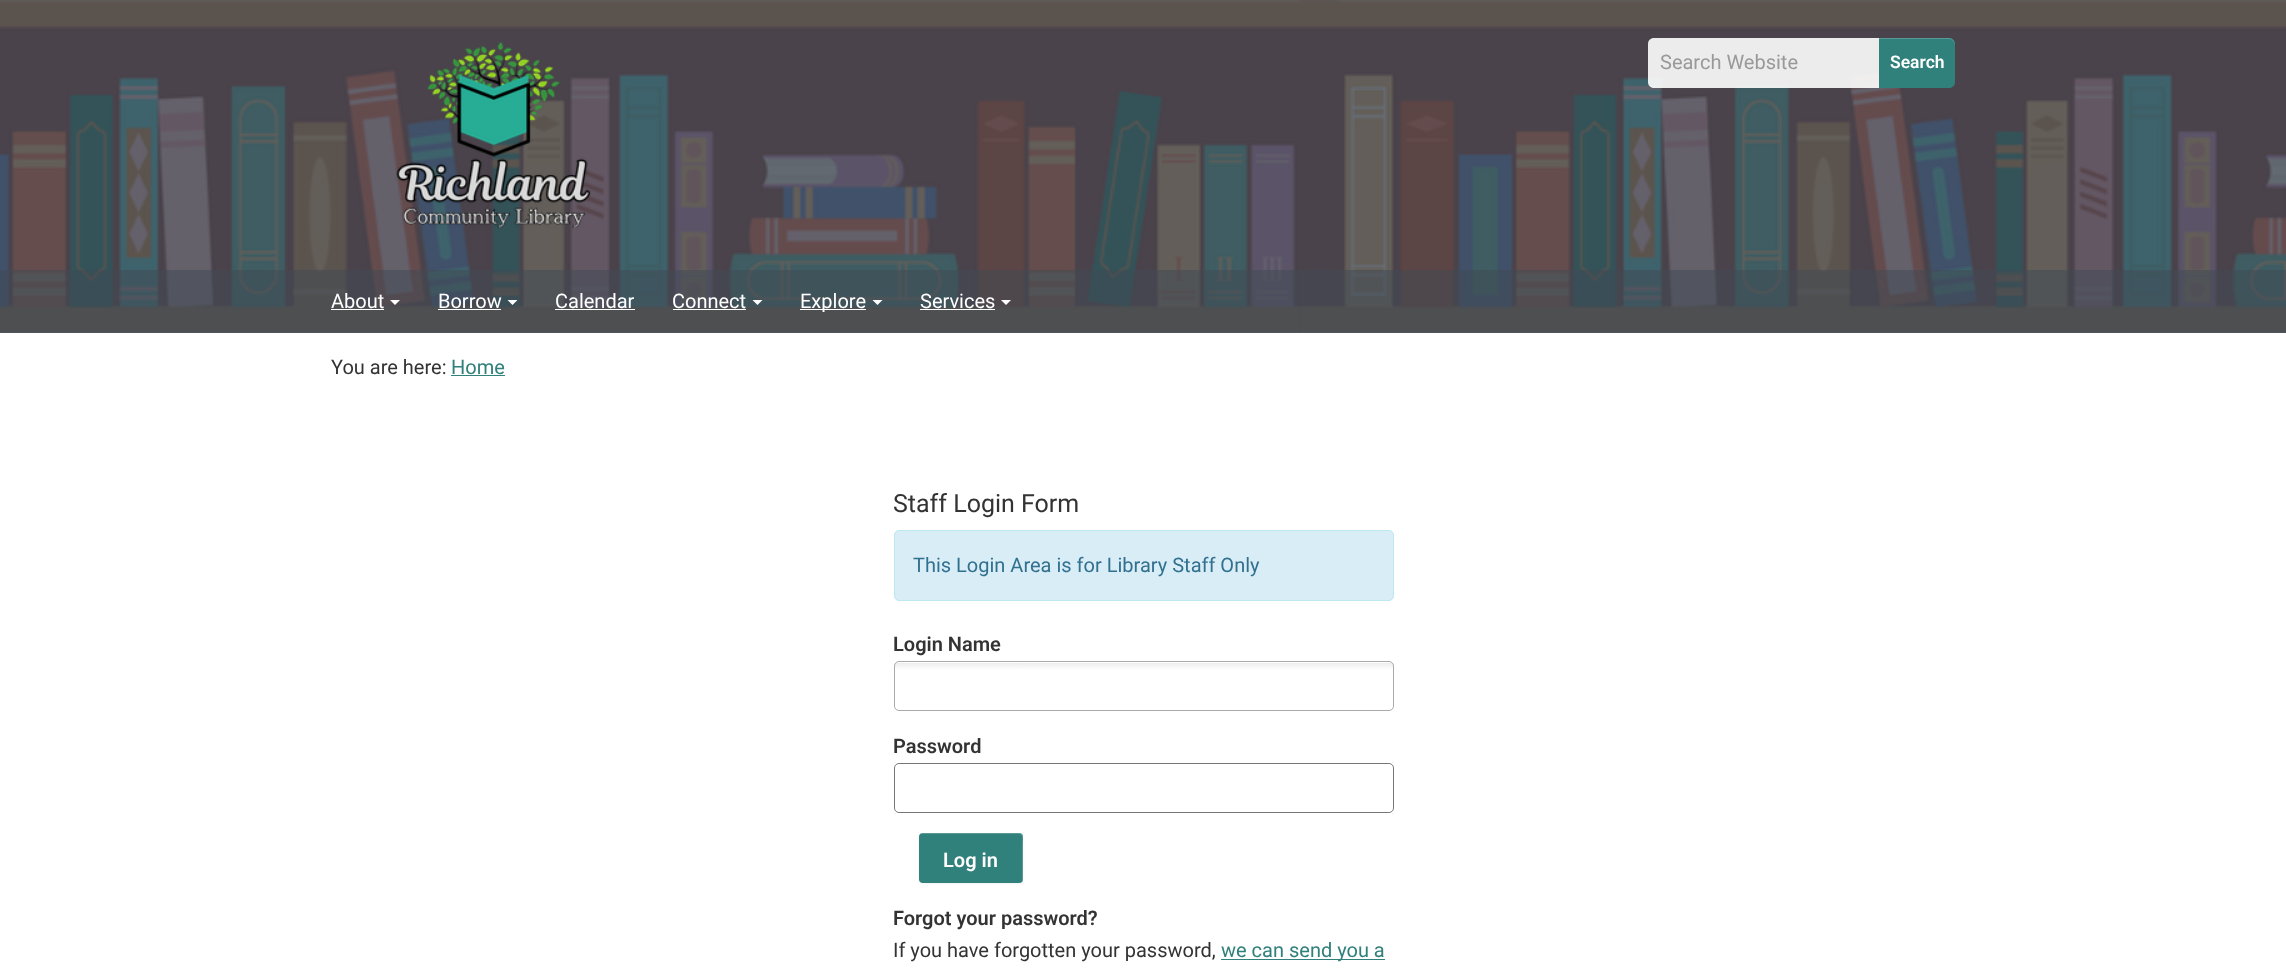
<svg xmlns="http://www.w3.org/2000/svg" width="2286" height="976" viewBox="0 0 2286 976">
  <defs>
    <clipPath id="clip1"><rect x="894" y="661" width="500" height="50" rx="5"/></clipPath>
    <linearGradient id="g1" gradientUnits="userSpaceOnUse" x1="1144" y1="663" x2="1144" y2="710"><stop offset="0.01" stop-color="rgb(238,238,238)"/><stop offset="0.15" stop-color="rgb(255,255,255)"/></linearGradient>
  </defs>
  <rect width="100%" height="100%" fill="rgb(255,255,255)"/>
  <image x="0" y="0" width="2286" height="333" href="pic1.png"/>
  <rect x="0" y="0" width="2286" height="270" fill="rgba(63,73,83,0.8)"/>
  <image x="396" y="42" width="195" height="187" href="pic2.png"/>
  <path d="M1654 38H1879V88H1654C1650.5 88 1648 85.5 1648 82V44C1648 40.5 1650.5 38 1654 38Z" fill="rgba(255,255,255,0.9)"/>
  <text x="1660" y="69" font-family="Roboto" font-size="20" fill="rgb(153,153,153)">Search Website</text>
  <path d="M1879 38H1949C1952.5 38 1955 40.5 1955 44V82C1955 85.5 1952.5 88 1949 88H1879Z" fill="rgb(48,128,123)"/>
  <path d="M1879 39H1949C1952 39 1955 42 1955 45V44C1955 41 1952 38 1949 38H1879Z" fill="rgba(255,255,255,0.2)"/>
  <text x="1890" y="68" font-family="Roboto" font-size="17.5" font-weight="600" fill="rgb(255,255,255)">Search</text>
  <rect x="0" y="270" width="2286" height="63" fill="rgba(63,73,83,0.9)"/>
  <text x="331" y="308" font-family="Roboto" font-size="20" fill="rgb(255,255,255)">About</text>
  <rect x="331" y="309" width="53" height="1" fill="rgb(255,255,255)"/>
  <path d="M390 300H400L395 305Z" fill="rgb(255,255,255)"/>
  <text x="438" y="308" font-family="Roboto" font-size="20" fill="rgb(255,255,255)">Borrow</text>
  <rect x="438" y="309" width="63" height="1" fill="rgb(255,255,255)"/>
  <path d="M507.5 300H517.5L512.5 305Z" fill="rgb(255,255,255)"/>
  <text x="555" y="308" font-family="Roboto" font-size="20" fill="rgb(255,255,255)">Calendar</text>
  <rect x="555" y="309" width="80" height="1" fill="rgb(255,255,255)"/>
  <text x="672" y="308" font-family="Roboto" font-size="20" fill="rgb(255,255,255)">Connect</text>
  <rect x="673" y="309" width="73" height="1" fill="rgb(255,255,255)"/>
  <path d="M752.5 300H762.5L757.5 305Z" fill="rgb(255,255,255)"/>
  <rect x="800" y="309" width="66" height="1" fill="rgb(255,255,255)"/>
  <text x="800" y="308" font-family="Roboto" font-size="20" fill="rgb(255,255,255)">Explore</text>
  <path d="M872.5 300H882.5L877.5 305Z" fill="rgb(255,255,255)"/>
  <text x="920" y="308" font-family="Roboto" font-size="20" fill="rgb(255,255,255)">Services</text>
  <rect x="920" y="309" width="75" height="1" fill="rgb(255,255,255)"/>
  <path d="M1001 300H1011L1006 305Z" fill="rgb(255,255,255)"/>
  <text x="331" y="374" font-family="Roboto" font-size="20" fill="rgb(51,51,51)">You are here:</text>
  <text x="451" y="374" font-family="Roboto" font-size="20" fill="rgb(48,128,123)">Home</text>
  <rect x="451" y="375" width="54" height="1" fill="rgb(48,128,123)"/>
  <text x="893" y="512" font-family="Roboto" font-size="25" fill="rgb(51,51,51)">Staff Login Form</text>
  <rect x="894.5" y="530.5" width="499" height="70" rx="4.5" fill="rgb(217,237,247)" stroke="rgb(188,232,241)"/>
  <text x="913" y="572" font-family="Roboto" font-size="20" fill="rgb(49,112,143)">This Login Area is for Library Staff Only</text>
  <text x="893" y="651" font-family="Roboto" font-size="20" font-weight="600" fill="rgb(51,51,51)">Login Name</text>
  <g clip-path="url(#clip1)">
    <rect x="894" y="663" width="500" height="47" fill="url(#g1)"/>
  </g>
  <rect x="894.5" y="661.5" width="499" height="49" rx="4.5" fill="none" stroke="rgb(170,170,170)"/>
  <text x="893" y="753" font-family="Roboto" font-size="20" font-weight="600" fill="rgb(51,51,51)">Password</text>
  <rect x="894.5" y="763.5" width="499" height="49" rx="4.5" fill="none" stroke="rgb(119,119,119)"/>
  <rect x="919" y="834" width="104" height="50" rx="4" fill="rgba(0,0,0,0.05)" filter="blur(1px)"/>
  <rect x="919" y="833" width="104" height="50" rx="4" fill="rgb(48,128,123)"/>
  <path d="M922 834H1019C1024 834 1022 843 1022 845V882C1022 881 1023 880 1023 879V837C1023 835 1021 833 1019 833H923C921 833 919 835 919 837V838C919 835 920 834 922 834Z" fill="rgba(255,255,255,0.2)"/>
  <text x="943" y="867" font-family="Roboto" font-size="20" font-weight="600" fill="rgb(255,255,255)">Log in</text>
  <text x="893" y="925" font-family="Roboto" font-size="20" font-weight="600" fill="rgb(51,51,51)">Forgot your password?</text>
  <text x="893" y="957" font-family="Roboto" font-size="20" fill="rgb(51,51,51)">If you have forgotten your password,</text>
  <rect x="1221" y="959" width="164" height="1" fill="rgb(48,128,123)"/>
  <text x="1221" y="957" font-family="Roboto" font-size="20" fill="rgb(48,128,123)">we can send you a</text>
</svg>
